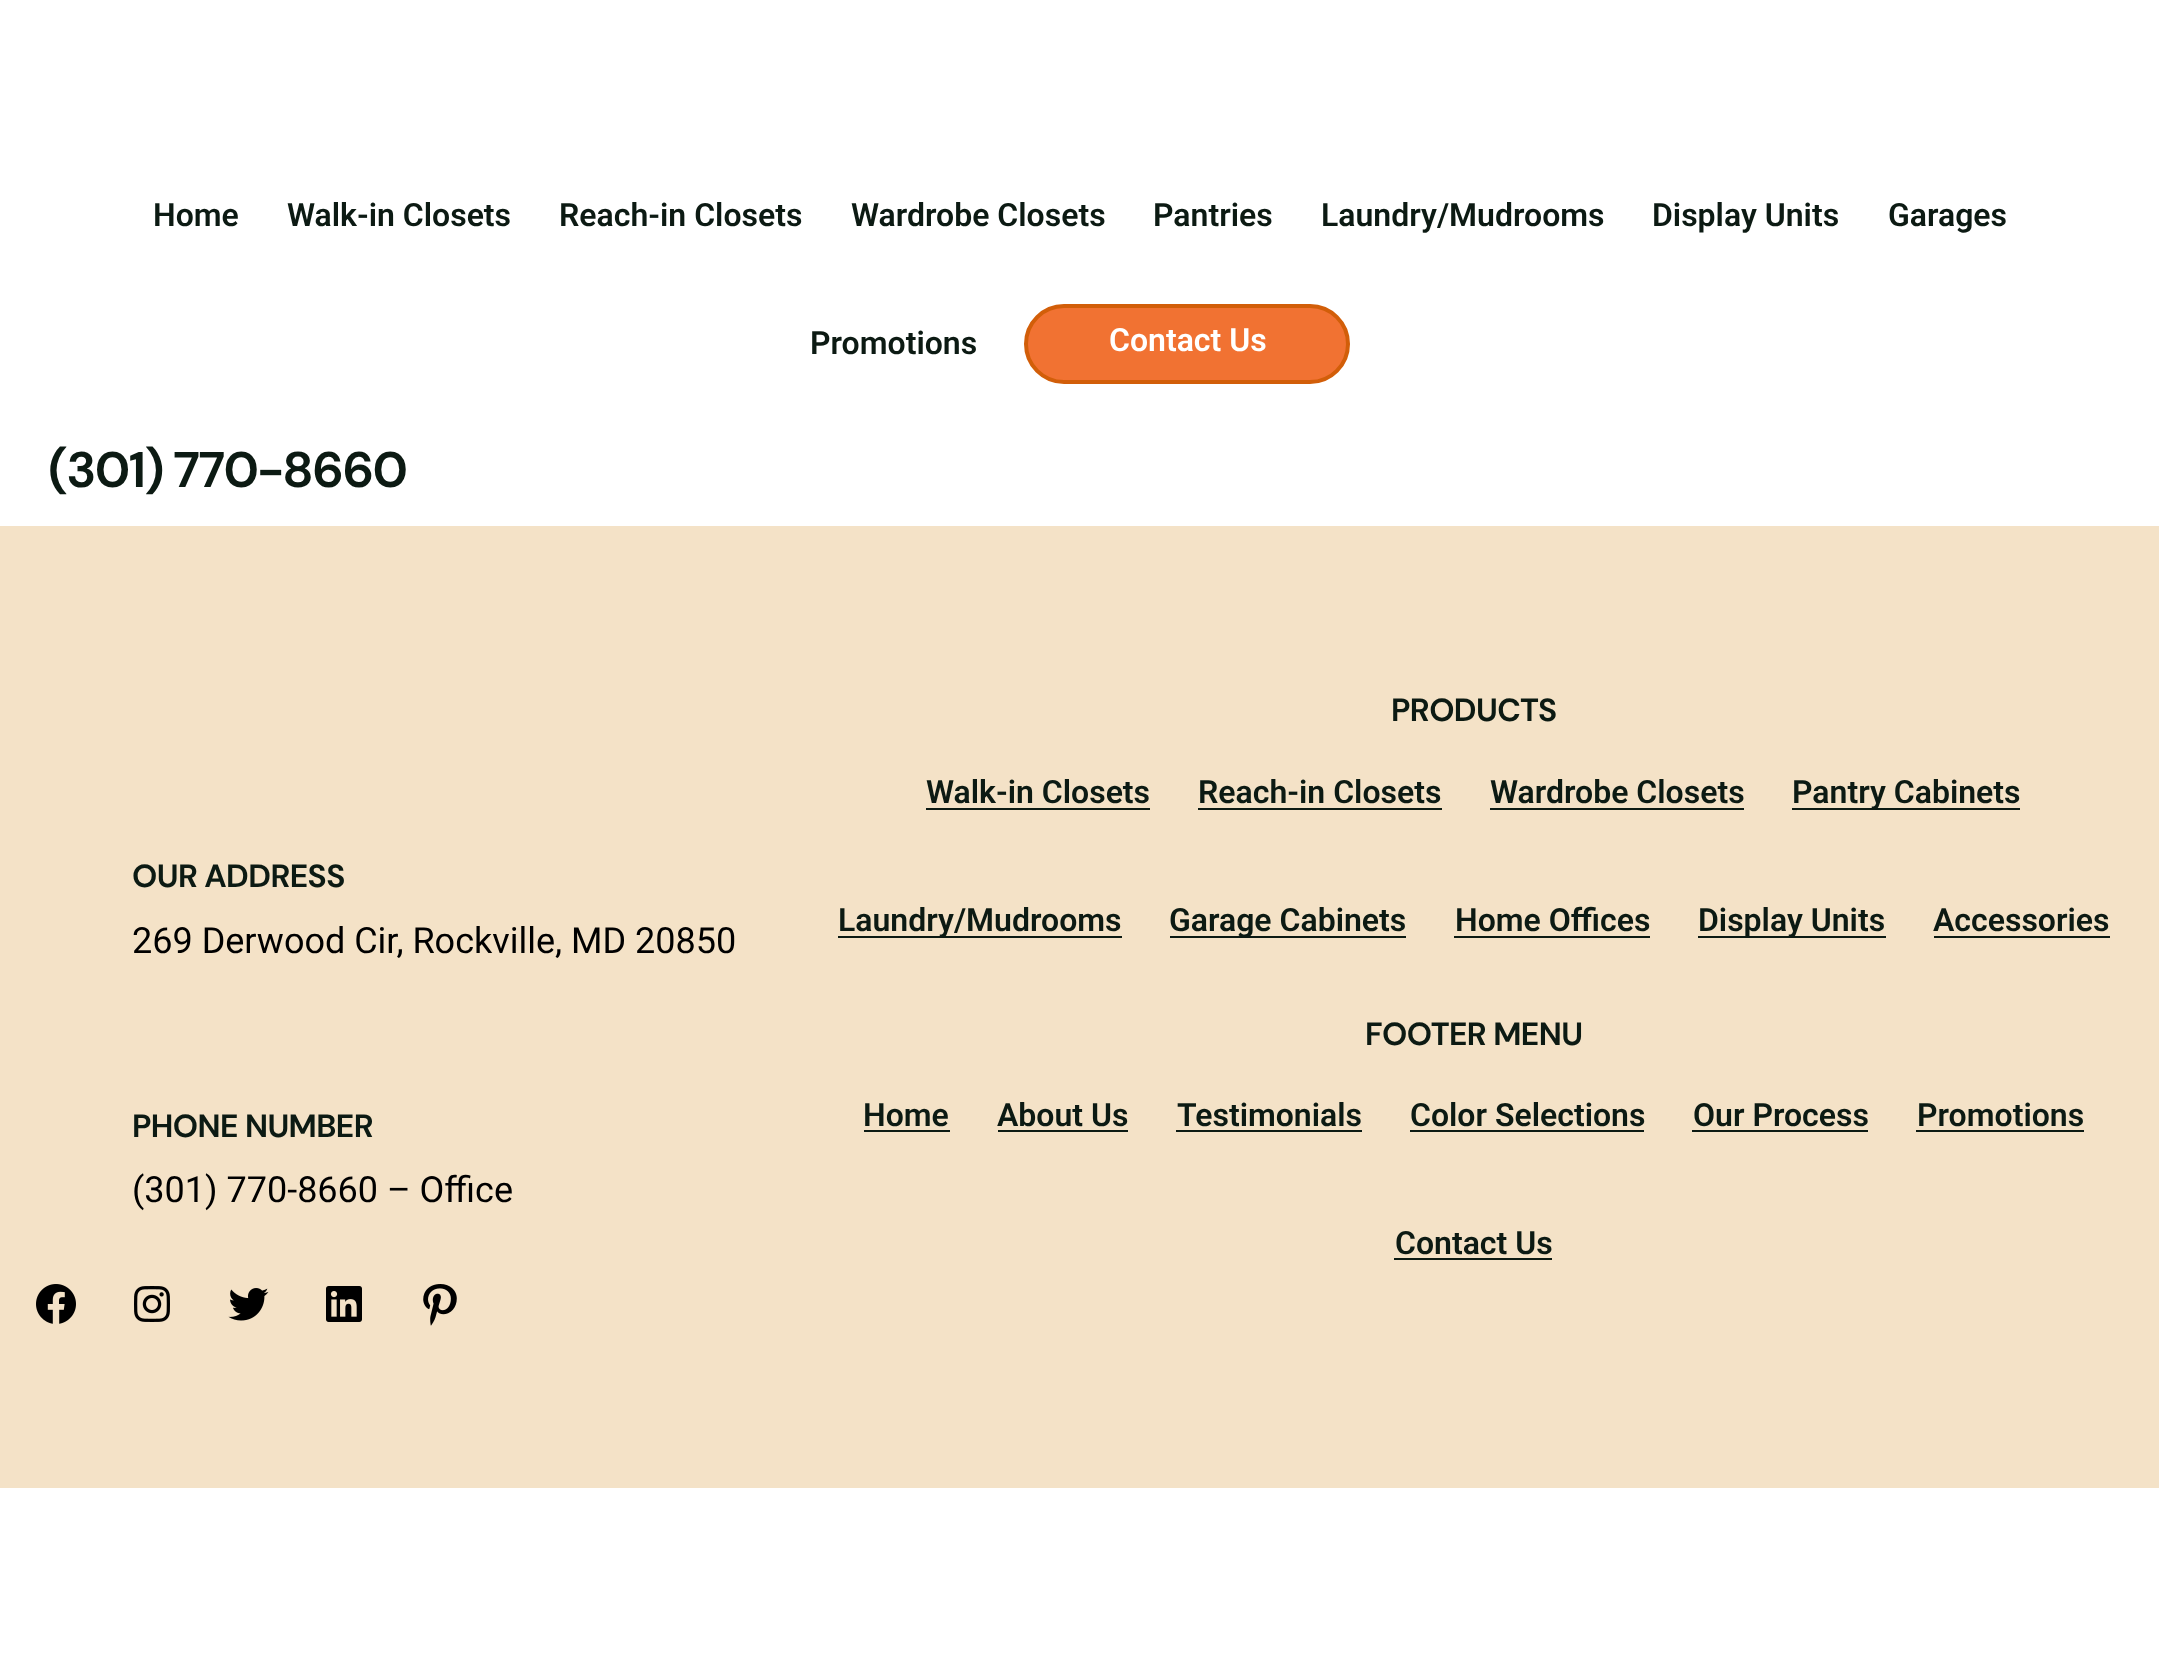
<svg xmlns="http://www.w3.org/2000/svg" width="2159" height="1679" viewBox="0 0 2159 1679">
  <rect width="100%" height="100%" fill="rgb(255,255,255)"/>
  <g font-family="Roboto" font-size="32" font-weight="600" fill="rgb(12,26,19)">
    <text x="153" y="226">Home</text>
    <text x="287" y="226">Walk-in Closets</text>
    <text x="559" y="226">Reach-in Closets</text>
    <text x="851" y="226">Wardrobe Closets</text>
    <text x="1153" y="226">Pantries</text>
    <text x="1321" y="226">Laundry/Mudrooms</text>
    <text x="1652" y="226">Display Units</text>
    <text x="1888" y="226">Garages</text>
    <text x="810" y="354">Promotions</text>
  </g>
  <rect x="1026" y="306" width="322" height="76" rx="38" fill="rgb(241,114,50)" stroke="rgb(210,94,9)" stroke-width="4"/>
  <text x="1109" y="351" font-family="Roboto" font-size="32" font-weight="600" fill="rgb(255,255,255)">Contact Us</text>
  <text x="48" y="487" font-family="DM Sans" font-size="50" font-weight="bold" letter-spacing="-1.5" fill="rgb(12,26,19)">(301) 770-8660</text>
  <rect x="0" y="526" width="2159" height="962" fill="rgb(244,226,199)"/>
  <text x="132" y="887" font-family="DM Sans" font-size="32" font-weight="bold" letter-spacing="-0.6" fill="rgb(12,26,19)">OUR ADDRESS</text>
  <text x="132" y="953" font-family="Roboto" font-size="36" fill="rgb(0,0,0)">269 Derwood Cir, Rockville, MD 20850</text>
  <text x="132" y="1137" font-family="DM Sans" font-size="32" font-weight="bold" letter-spacing="-0.6" fill="rgb(12,26,19)">PHONE NUMBER</text>
  <text x="132" y="1202" font-family="Roboto" font-size="36" fill="rgb(0,0,0)">(301) 770-8660 – Office</text>
  <image x="36" y="1284" width="40" height="40" href="pic1.png"/>
  <image x="134" y="1286" width="36" height="36" href="pic2.png"/>
  <image x="228" y="1288" width="41" height="33" href="pic3.png"/>
  <image x="326" y="1286" width="36" height="36" href="pic4.png"/>
  <image x="423" y="1284" width="34" height="42" href="pic5.png"/>
  <text x="1391" y="721" font-family="DM Sans" font-size="32" font-weight="bold" letter-spacing="-0.6" fill="rgb(12,26,19)">PRODUCTS</text>
  <text x="926" y="803" font-family="Roboto" font-size="32" font-weight="600" fill="rgb(12,26,19)">Walk-in Closets</text>
  <rect x="926" y="808" width="224" height="2" fill="rgb(12,26,19)"/>
  <text x="1198" y="803" font-family="Roboto" font-size="32" font-weight="600" fill="rgb(12,26,19)">Reach-in Closets</text>
  <rect x="1198" y="808" width="244" height="2" fill="rgb(12,26,19)"/>
  <text x="1490" y="803" font-family="Roboto" font-size="32" font-weight="600" fill="rgb(12,26,19)">Wardrobe Closets</text>
  <rect x="1490" y="808" width="254" height="2" fill="rgb(12,26,19)"/>
  <rect x="1792" y="808" width="228" height="2" fill="rgb(12,26,19)"/>
  <text x="1792" y="803" font-family="Roboto" font-size="32" font-weight="600" fill="rgb(12,26,19)">Pantry Cabinets</text>
  <rect x="838" y="936" width="284" height="2" fill="rgb(12,26,19)"/>
  <text x="838" y="931" font-family="Roboto" font-size="32" font-weight="600" fill="rgb(12,26,19)">Laundry/Mudrooms</text>
  <rect x="1170" y="936" width="236" height="2" fill="rgb(12,26,19)"/>
  <g font-family="Roboto" font-size="32" font-weight="600" fill="rgb(12,26,19)">
    <text x="1169" y="931">Garage Cabinets</text>
    <text x="1455" y="931">Home Offices</text>
  </g>
  <rect x="1454" y="936" width="196" height="2" fill="rgb(12,26,19)"/>
  <rect x="1698" y="936" width="188" height="2" fill="rgb(12,26,19)"/>
  <g font-family="Roboto" font-size="32" font-weight="600" fill="rgb(12,26,19)">
    <text x="1698" y="931">Display Units</text>
    <text x="1933" y="931">Accessories</text>
  </g>
  <rect x="1934" y="936" width="176" height="2" fill="rgb(12,26,19)"/>
  <text x="1365" y="1045" font-family="DM Sans" font-size="32" font-weight="bold" letter-spacing="-0.6" fill="rgb(12,26,19)">FOOTER MENU</text>
  <text x="863" y="1126" font-family="Roboto" font-size="32" font-weight="600" fill="rgb(12,26,19)">Home</text>
  <rect x="864" y="1130" width="86" height="2" fill="rgb(12,26,19)"/>
  <text x="997" y="1126" font-family="Roboto" font-size="32" font-weight="600" fill="rgb(12,26,19)">About Us</text>
  <rect x="998" y="1130" width="130" height="2" fill="rgb(12,26,19)"/>
  <text x="1177" y="1126" font-family="Roboto" font-size="32" font-weight="600" fill="rgb(12,26,19)">Testimonials</text>
  <rect x="1176" y="1130" width="186" height="2" fill="rgb(12,26,19)"/>
  <text x="1410" y="1126" font-family="Roboto" font-size="32" font-weight="600" fill="rgb(12,26,19)">Color Selections</text>
  <rect x="1410" y="1130" width="234" height="2" fill="rgb(12,26,19)"/>
  <text x="1693" y="1126" font-family="Roboto" font-size="32" font-weight="600" fill="rgb(12,26,19)">Our Process</text>
  <rect x="1692" y="1130" width="176" height="2" fill="rgb(12,26,19)"/>
  <text x="1917" y="1126" font-family="Roboto" font-size="32" font-weight="600" fill="rgb(12,26,19)">Promotions</text>
  <rect x="1916" y="1130" width="168" height="2" fill="rgb(12,26,19)"/>
  <text x="1395" y="1254" font-family="Roboto" font-size="32" font-weight="600" fill="rgb(12,26,19)">Contact Us</text>
  <rect x="1394" y="1258" width="158" height="2" fill="rgb(12,26,19)"/>
</svg>
